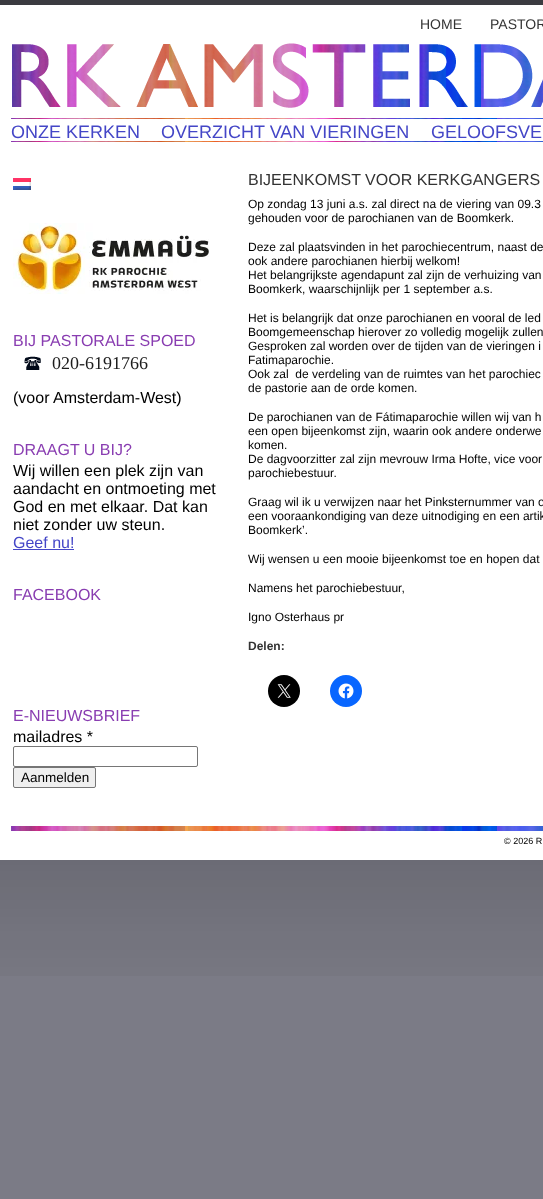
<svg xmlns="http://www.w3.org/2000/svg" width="543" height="1199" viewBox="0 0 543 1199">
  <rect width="100%" height="100%" fill="rgb(123,123,134)"/>
  <image x="0" y="0" width="543" height="976" href="pic1.png"/>
  <rect x="0" y="5" width="543" height="855" fill="rgb(255,255,255)"/>
  <g font-family="Liberation Sans" font-size="14" fill="rgb(51,51,51)">
    <text x="420" y="29">HOME</text>
    <text x="490" y="29">PASTOR</text>
  </g>
  <image x="12" y="43" width="531" height="65" href="pic2.png"/>
  <image x="11" y="141" width="532" height="1" href="pic3.png"/>
  <image x="11" y="118" width="532" height="1" href="pic3.png"/>
  <g font-family="Liberation Sans" font-size="18" fill="rgb(68,70,199)">
    <text x="11" y="138">ONZE KERKEN</text>
    <text x="161" y="138">OVERZICHT VAN VIERINGEN</text>
    <text x="431" y="138">GELOOFSVE</text>
  </g>
  <image x="13" y="178" width="18" height="12" href="pic4.png"/>
  <image x="13" y="223" width="196" height="71" href="pic5.png"/>
  <text x="13" y="346" font-family="Liberation Sans" font-size="16" fill="rgb(137,61,177)">BIJ PASTORALE SPOED</text>
  <image x="24" y="356" width="17" height="14" href="pic6.png"/>
  <text x="52" y="369" font-family="Liberation Serif" font-size="18" fill="rgb(29,29,29)">020-6191766</text>
  <text x="13" y="403" font-family="Liberation Sans" font-size="16" fill="rgb(0,0,0)">(voor Amsterdam-West)</text>
  <text x="13" y="455" font-family="Liberation Sans" font-size="16" fill="rgb(137,61,177)">DRAAGT U BIJ?</text>
  <g font-family="Liberation Sans" font-size="16" fill="rgb(0,0,0)">
    <text>
      <tspan x="13" y="476">Wij willen een plek zijn van</tspan>
      <tspan x="13" y="494">aandacht en ontmoeting met</tspan>
      <tspan x="13" y="512">God en met elkaar. Dat kan</tspan>
      <tspan x="13" y="530">niet zonder uw steun.</tspan>
    </text>
  </g>
  <text x="13" y="548" font-family="Liberation Sans" font-size="16" fill="rgb(68,70,199)">Geef nu!</text>
  <rect x="13" y="549" width="61" height="1" fill="rgb(68,70,199)"/>
  <g font-family="Liberation Sans" font-size="16" fill="rgb(137,61,177)">
    <text x="13" y="600">FACEBOOK</text>
    <text x="13" y="721">E-NIEUWSBRIEF</text>
  </g>
  <text x="13" y="742" font-family="Liberation Sans" font-size="16" fill="rgb(0,0,0)">mailadres *</text>
  <rect x="13.5" y="746.5" width="184" height="20" rx="1.5" fill="none" stroke="rgb(118,118,118)"/>
  <rect x="13.5" y="767.5" width="82" height="20" rx="1.5" fill="rgb(239,239,239)" stroke="rgb(118,118,118)"/>
  <text x="21" y="782" font-family="Liberation Sans" font-size="13.5" fill="rgb(0,0,0)">Aanmelden</text>
  <text x="248" y="185" font-family="Liberation Sans" font-size="16" fill="rgb(51,51,51)">BIJEENKOMST VOOR KERKGANGERS</text>
  <g font-family="Liberation Sans" font-size="12" fill="rgb(0,0,0)">
    <text>
      <tspan x="248" y="208">Op zondag 13 juni a.s. zal direct na de viering van 09.3</tspan>
      <tspan x="248" y="222">gehouden voor de parochianen van de Boomkerk.</tspan>
    </text>
    <text>
      <tspan x="248" y="251">Deze zal plaatsvinden in het parochiecentrum, naast de</tspan>
      <tspan x="248" y="265">ook andere parochianen hierbij welkom!</tspan>
      <tspan x="248" y="279">Het belangrijkste agendapunt zal zijn de verhuizing van</tspan>
      <tspan x="248" y="293">Boomkerk, waarschijnlijk per 1 september a.s.</tspan>
    </text>
    <text xml:space="preserve"><tspan x="248" y="322">Het is belangrijk dat onze parochianen en vooral de led</tspan><tspan x="248" y="336">Boomgemeenschap hierover zo volledig mogelijk zullen</tspan><tspan x="248" y="350">Gesproken zal worden over de tijden van de vieringen i</tspan><tspan x="248" y="364">Fatimaparochie.</tspan><tspan x="248" y="378">Ook zal  de verdeling van de ruimtes van het parochiec</tspan><tspan x="248" y="392">de pastorie aan de orde komen.</tspan></text>
    <text>
      <tspan x="248" y="421">De parochianen van de Fátimaparochie willen wij van h</tspan>
      <tspan x="248" y="435">een open bijeenkomst zijn, waarin ook andere onderwe</tspan>
      <tspan x="248" y="449">komen.</tspan>
      <tspan x="248" y="463">De dagvoorzitter zal zijn mevrouw Irma Hofte, vice voor</tspan>
      <tspan x="248" y="477">parochiebestuur.</tspan>
    </text>
    <text>
      <tspan x="248" y="506">Graag wil ik u verwijzen naar het Pinksternummer van o</tspan>
      <tspan x="248" y="520">een vooraankondiging van deze uitnodiging en een artik</tspan>
      <tspan x="248" y="534">Boomkerk’.</tspan>
    </text>
    <text x="248" y="563">Wij wensen u een mooie bijeenkomst toe en hopen dat</text>
    <text x="248" y="592">Namens het parochiebestuur,</text>
    <text x="248" y="621">Igno Osterhaus pr</text>
  </g>
  <text x="248" y="650" font-family="Liberation Sans" font-size="12" font-weight="bold" fill="rgb(51,51,51)">Delen:</text>
  <circle cx="284" cy="691" r="16" fill="rgb(0,0,0)"/>
  <image x="277" y="684" width="14" height="14" href="pic7.png"/>
  <circle cx="346" cy="691" r="16" fill="rgb(8,102,255)"/>
  <image x="338" y="683" width="16" height="16" href="pic8.png"/>
  <image x="11" y="826" width="532" height="5" href="pic9.png"/>
  <text x="504" y="844" font-family="Liberation Sans" font-size="9" fill="rgb(0,0,0)">© 2026 R</text>
</svg>
